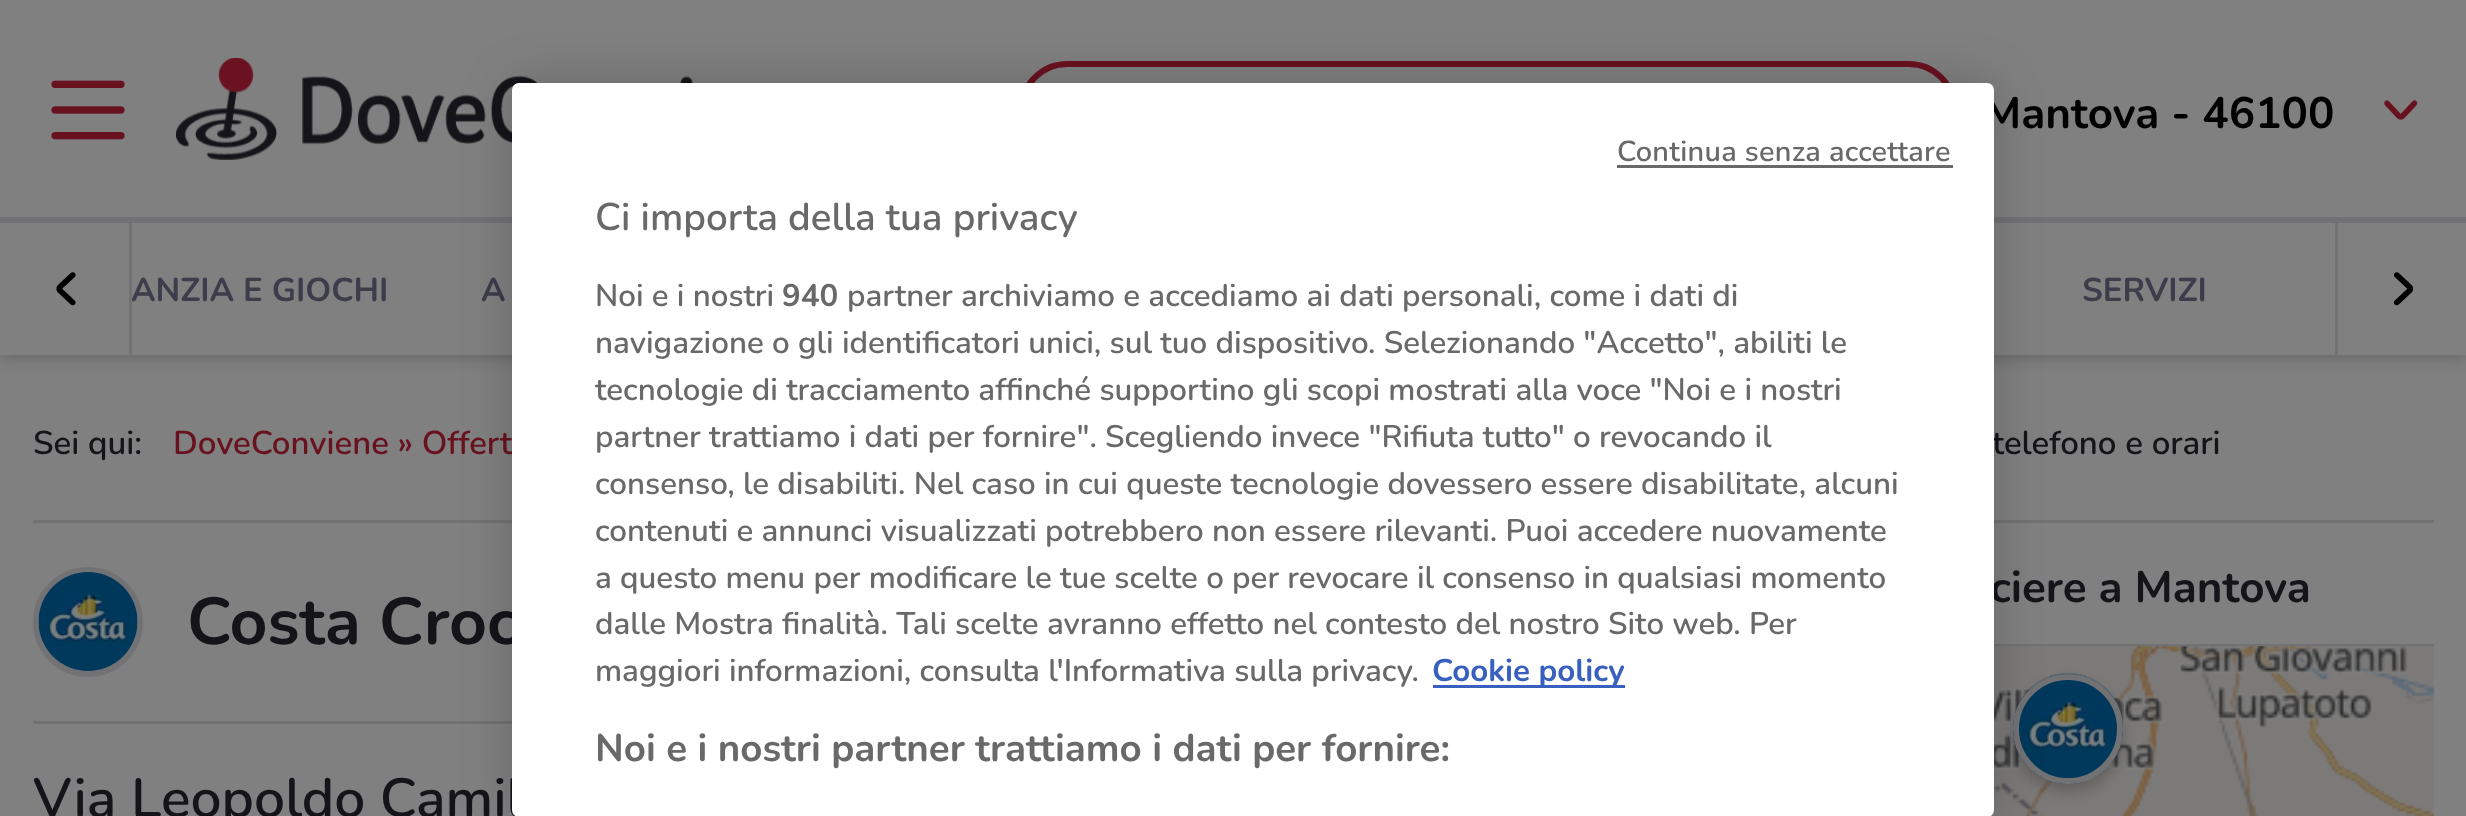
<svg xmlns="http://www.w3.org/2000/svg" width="2466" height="816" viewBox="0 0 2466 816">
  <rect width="100%" height="100%" fill="rgb(128,128,128)"/>
  <rect x="0" y="3" width="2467" height="355" fill="rgba(0,0,0,0.2)" filter="blur(8px)"/>
  <rect x="0" y="0" width="2466" height="355" fill="rgb(128,128,128)"/>
  <image x="51" y="80" width="74" height="60" href="pic1.png"/>
  <image x="176" y="58" width="517" height="102" href="pic2.png"/>
  <rect x="1021" y="64" width="934" height="93" rx="46.5" fill="none" stroke="rgb(105,18,31)" stroke-width="6"/>
  <text x="1983" y="128" font-family="Nunito" font-size="44" font-weight="bold" fill="rgb(0,0,0)">Mantova - 46100</text>
  <image x="2384" y="100" width="34" height="20" href="pic3.png"/>
  <rect x="0" y="217" width="2466" height="6" fill="rgb(114,114,117)"/>
  <rect x="129" y="223" width="3" height="132" fill="rgb(114,114,117)"/>
  <image x="56" y="272" width="20" height="34" href="pic4.png"/>
  <g font-family="Nunito" font-size="33" font-weight="bold" fill="rgb(60,60,74)">
    <text x="131" y="301">ANZIA E GIOCHI</text>
    <text x="481" y="301">A</text>
    <text x="2082" y="301">SERVIZI</text>
  </g>
  <rect x="2335" y="223" width="3" height="132" fill="rgb(114,114,117)"/>
  <image x="2393" y="272" width="21" height="34" href="pic5.png"/>
  <text x="33" y="454" font-family="Nunito" font-size="33" font-weight="600" fill="rgb(20,20,25)">Sei qui:</text>
  <text x="173" y="454" font-family="Nunito" font-size="33" font-weight="600" fill="rgb(105,18,31)">DoveConviene » Offert</text>
  <text x="1992" y="454" font-family="Nunito" font-size="33" font-weight="600" fill="rgb(20,20,25)">telefono e orari</text>
  <rect x="33" y="520" width="2401" height="3" fill="rgb(114,114,117)"/>
  <text x="1990" y="602" font-family="Nunito" font-size="44" font-weight="bold" fill="rgb(20,20,25)">ciere a Mantova</text>
  <rect x="1994" y="644" width="440" height="3" fill="rgb(114,114,117)"/>
  <image x="1990" y="646" width="444" height="170" href="pic6.png"/>
  <rect x="2013" y="682" width="110" height="110" rx="55" fill="rgba(0,0,0,0.2)" filter="blur(7px)"/>
  <image x="2013" y="673" width="110" height="111" href="pic7.png"/>
  <circle cx="2068" cy="729" r="52" fill="none" stroke="rgb(114,114,117)" stroke-width="6"/>
  <rect x="33" y="721" width="479" height="3" fill="rgb(114,114,117)"/>
  <circle cx="88" cy="622" r="52" fill="none" stroke="rgb(114,114,117)" stroke-width="6"/>
  <image x="38" y="572" width="100" height="99" href="pic8.png"/>
  <text x="187" y="644" font-family="Nunito" font-size="66" font-weight="bold" fill="rgb(20,20,25)">Costa Croc</text>
  <text x="33" y="817" font-family="Nunito" font-size="55" font-weight="600" fill="rgb(20,20,25)">Via Leopoldo Camil</text>
  <rect x="512" y="83" width="1482" height="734" rx="7" fill="rgba(0,0,0,0.2)" filter="blur(25px)"/>
  <rect x="512" y="83" width="1482" height="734" rx="7" fill="rgb(255,255,255)"/>
  <text x="1617" y="161" font-family="Nunito" font-size="28.9" font-weight="600" letter-spacing="0.25" fill="rgb(105,105,105)">Continua senza accettare</text>
  <rect x="1617" y="165" width="336" height="3" fill="rgb(105,105,105)"/>
  <text x="595" y="230" font-family="Nunito" font-size="38.5" font-weight="600" fill="rgb(105,105,105)">Ci importa della tua privacy</text>
  <text x="595" y="306" font-family="Nunito" font-size="31.3" font-weight="600" fill="rgb(105,105,105)">Noi e i nostri</text>
  <text x="782" y="306" font-family="Nunito" font-size="31.3" font-weight="bold" fill="rgb(105,105,105)">940</text>
  <g font-family="Nunito" font-size="31.3" font-weight="600" fill="rgb(105,105,105)">
    <text x="847" y="306">partner archiviamo e accediamo ai dati personali, come i dati di</text>
    <text>
      <tspan x="595" y="353">navigazione o gli identificatori unici, sul tuo dispositivo. Selezionando "Accetto", abiliti le</tspan>
      <tspan x="595" y="400">tecnologie di tracciamento affinché supportino gli scopi mostrati alla voce "Noi e i nostri</tspan>
      <tspan x="595" y="447">partner trattiamo i dati per fornire". Scegliendo invece "Rifiuta tutto" o revocando il</tspan>
      <tspan x="595" y="494">consenso, le disabiliti. Nel caso in cui queste tecnologie dovessero essere disabilitate, alcuni</tspan>
      <tspan x="595" y="541">contenuti e annunci visualizzati potrebbero non essere rilevanti. Puoi accedere nuovamente</tspan>
      <tspan x="595" y="588">a questo menu per modificare le tue scelte o per revocare il consenso in qualsiasi momento</tspan>
      <tspan x="595" y="634">dalle Mostra finalità. Tali scelte avranno effetto nel contesto del nostro Sito web. Per</tspan>
      <tspan x="595" y="681">maggiori informazioni, consulta l'Informativa sulla privacy.</tspan>
    </text>
  </g>
  <rect x="1433" y="685" width="192" height="3" fill="rgb(56,96,190)"/>
  <text x="1432" y="681" font-family="Nunito" font-size="31.3" font-weight="bold" fill="rgb(56,96,190)">Cookie policy</text>
  <text x="595" y="761" font-family="Nunito" font-size="38.5" font-weight="bold" fill="rgb(105,105,105)">Noi e i nostri partner trattiamo i dati per fornire:</text>
</svg>
